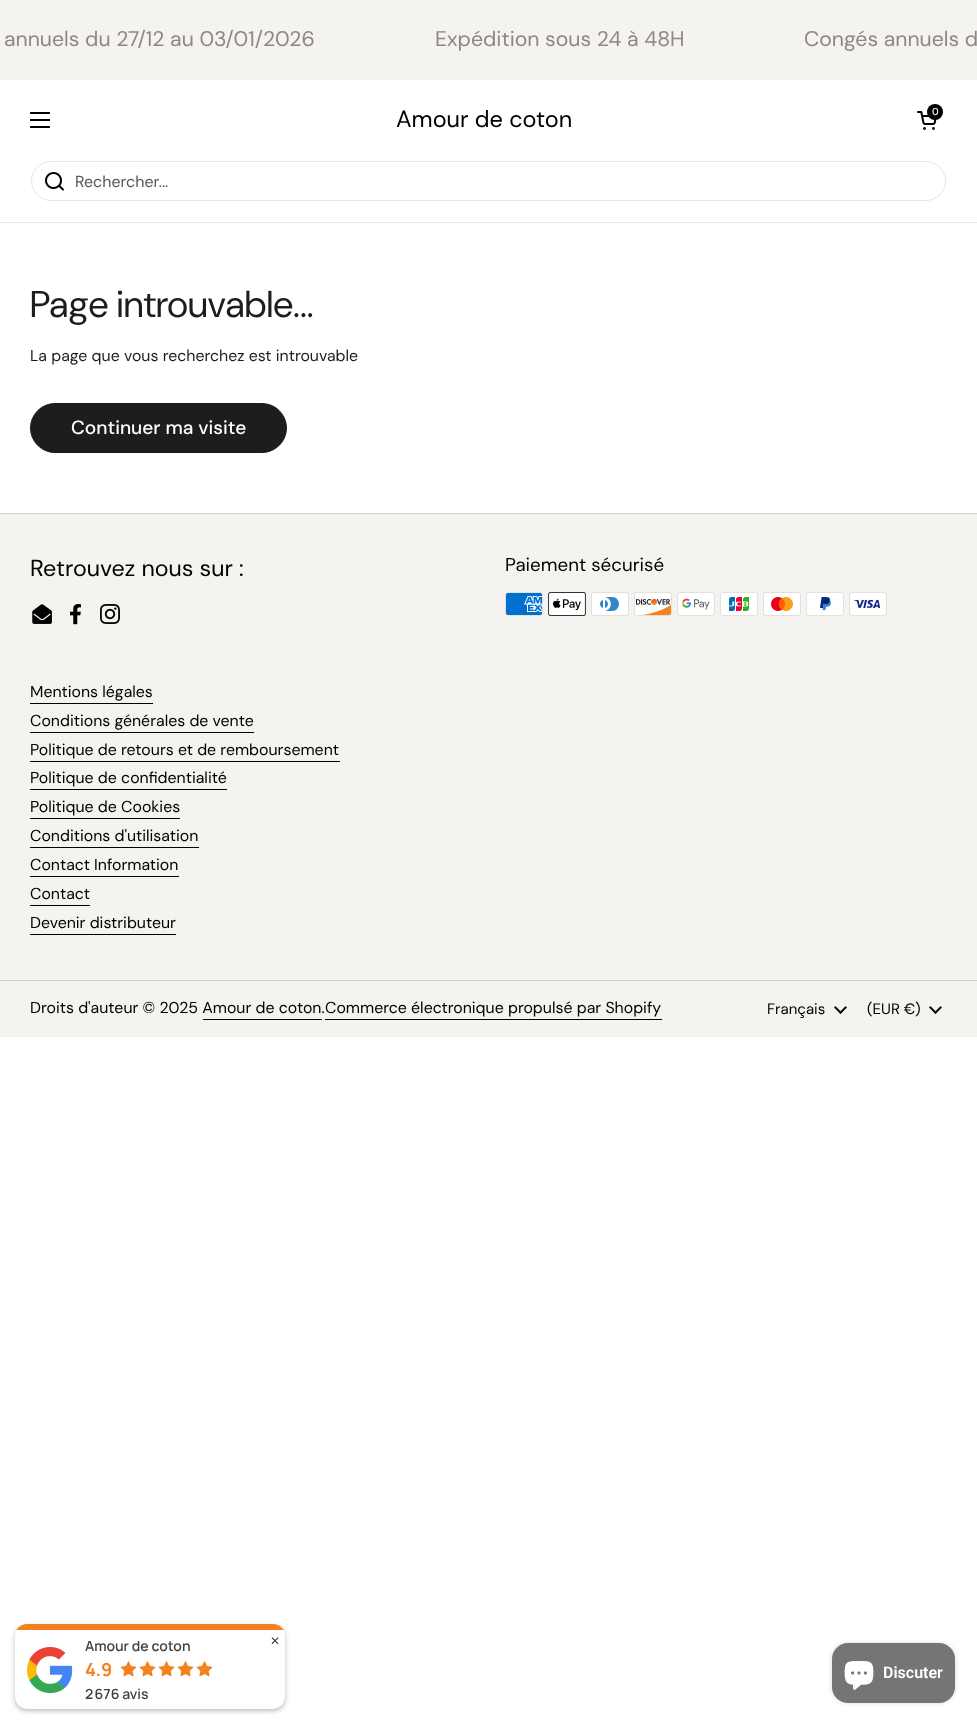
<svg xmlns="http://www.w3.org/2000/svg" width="977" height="1724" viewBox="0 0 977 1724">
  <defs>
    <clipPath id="clip1"><rect x="15" y="1624" width="270" height="85" rx="12"/></clipPath>
  </defs>
  <rect width="100%" height="100%" fill="rgb(255,255,255)"/>
  <rect x="0" y="0" width="977" height="80" fill="rgb(245,243,239)"/>
  <g font-family="DM Sans" font-size="21.25" fill="rgb(142,135,135)">
    <text x="4" y="46">annuels du 27/12 au 03/01/2026</text>
    <text x="435" y="46">Expédition sous 24 à 48H</text>
    <text x="804" y="46">Congés annuels d</text>
  </g>
  <rect x="30" y="112" width="20" height="2" fill="rgb(0,0,0)"/>
  <rect x="30" y="119" width="20" height="2" fill="rgb(0,0,0)"/>
  <rect x="30" y="126" width="20" height="2" fill="rgb(0,0,0)"/>
  <text x="396" y="127" font-family="'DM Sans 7'" font-size="23.5" fill="rgb(0,0,0)">Amour de coton</text>
  <image x="917" y="111" width="20" height="19" href="pic1.png"/>
  <circle cx="935" cy="112" r="8" fill="rgb(0,0,0)"/>
  <text x="932" y="115" font-family="'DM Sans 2'" font-size="10" font-weight="500" fill="rgb(255,255,255)">0</text>
  <rect x="0" y="222" width="977" height="1" fill="rgb(230,230,230)"/>
  <rect x="31.5" y="161.5" width="914" height="39" rx="19.5" fill="none" stroke="rgb(230,230,230)"/>
  <image x="45" y="172" width="19" height="19" href="pic2.png"/>
  <text x="75" y="187" font-family="'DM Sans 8'" font-size="16" fill="rgb(87,87,87)">Rechercher...</text>
  <text x="30" y="317" font-family="'DM Sans 2'" font-size="37.25" fill="rgb(29,29,29)">Page introuvable...</text>
  <text x="30" y="361" font-family="'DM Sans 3'" font-size="15.9" fill="rgb(29,29,29)">La page que vous recherchez est introuvable</text>
  <rect x="30.5" y="403.5" width="256" height="49" rx="24.5" fill="rgb(29,29,29)" stroke="rgb(29,29,29)"/>
  <text x="71" y="434" font-family="DM Sans" font-size="19.1" font-weight="500" fill="rgb(255,255,255)">Continuer ma visite</text>
  <rect x="0" y="514" width="977" height="523" fill="rgb(245,243,239)"/>
  <rect x="0" y="513" width="977" height="1" fill="rgb(208,207,203)"/>
  <text x="30" y="576" font-family="'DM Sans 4'" font-size="23.25" fill="rgb(0,0,0)">Retrouvez nous sur :</text>
  <image x="32" y="604" width="20" height="20" href="pic3.png"/>
  <image x="70" y="604" width="11" height="21" href="pic4.png"/>
  <image x="100" y="604" width="20" height="20" href="pic5.png"/>
  <text x="505" y="571" font-family="'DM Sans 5'" font-size="18.75" fill="rgb(0,0,0)">Paiement sécurisé</text>
  <image x="505" y="592" width="38" height="24" href="pic6.png"/>
  <image x="548" y="592" width="38" height="24" href="pic7.png"/>
  <image x="591" y="592" width="38" height="24" href="pic8.png"/>
  <image x="634" y="592" width="38" height="24" href="pic9.png"/>
  <image x="677" y="592" width="38" height="24" href="pic10.png"/>
  <image x="720" y="592" width="38" height="24" href="pic11.png"/>
  <image x="763" y="592" width="38" height="24" href="pic12.png"/>
  <image x="806" y="592" width="38" height="24" href="pic13.png"/>
  <image x="849" y="592" width="38" height="24" href="pic14.png"/>
  <text x="30" y="697" font-family="'DM Sans 3'" font-size="15.9" fill="rgb(0,0,0)">Mentions légales</text>
  <rect x="30" y="703" width="123" height="1" fill="rgb(0,0,0)"/>
  <text x="30" y="726" font-family="'DM Sans 3'" font-size="15.9" fill="rgb(0,0,0)">Conditions générales de vente</text>
  <rect x="30" y="732" width="224" height="1" fill="rgb(0,0,0)"/>
  <text x="30" y="755" font-family="'DM Sans 3'" font-size="15.9" fill="rgb(0,0,0)">Politique de retours et de remboursement</text>
  <rect x="30" y="761" width="310" height="1" fill="rgb(0,0,0)"/>
  <text x="30" y="783" font-family="'DM Sans 3'" font-size="15.9" fill="rgb(0,0,0)">Politique de confidentialité</text>
  <rect x="30" y="789" width="197" height="1" fill="rgb(0,0,0)"/>
  <text x="30" y="812" font-family="'DM Sans 3'" font-size="15.9" fill="rgb(0,0,0)">Politique de Cookies</text>
  <rect x="30" y="818" width="150" height="1" fill="rgb(0,0,0)"/>
  <text x="30" y="841" font-family="'DM Sans 3'" font-size="15.9" fill="rgb(0,0,0)">Conditions d'utilisation</text>
  <rect x="30" y="847" width="169" height="1" fill="rgb(0,0,0)"/>
  <text x="30" y="870" font-family="'DM Sans 3'" font-size="15.9" fill="rgb(0,0,0)">Contact Information</text>
  <rect x="30" y="876" width="149" height="1" fill="rgb(0,0,0)"/>
  <text x="30" y="899" font-family="'DM Sans 3'" font-size="15.9" fill="rgb(0,0,0)">Contact</text>
  <rect x="30" y="905" width="60" height="1" fill="rgb(0,0,0)"/>
  <text x="30" y="928" font-family="'DM Sans 3'" font-size="15.9" fill="rgb(0,0,0)">Devenir distributeur</text>
  <rect x="30" y="934" width="146" height="1" fill="rgb(0,0,0)"/>
  <rect x="0" y="980" width="977" height="1" fill="rgb(208,207,203)"/>
  <g font-family="'DM Sans 3'" font-size="15.9" fill="rgb(0,0,0)">
    <text x="30" y="1013">Droits d'auteur © 2025 Amour de coton.</text>
    <text x="325" y="1013">Commerce électronique propulsé par Shopify</text>
  </g>
  <rect x="325" y="1019" width="337" height="1" fill="rgb(0,0,0)"/>
  <rect x="203" y="1019" width="119" height="1" fill="rgb(0,0,0)"/>
  <text x="767" y="1014" font-family="'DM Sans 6'" font-size="15" fill="rgb(0,0,0)">Français</text>
  <image x="834" y="1006" width="13" height="8" href="pic15.png"/>
  <text x="867" y="1014" font-family="'DM Sans 6'" font-size="15" fill="rgb(0,0,0)">(EUR €)</text>
  <image x="929" y="1006" width="13" height="8" href="pic15.png"/>
  <rect x="15" y="1626" width="270" height="85" rx="12" fill="rgba(0,0,0,0.26)" filter="blur(2.5px)"/>
  <g clip-path="url(#clip1)">
    <rect x="15" y="1624" width="270" height="6" fill="rgb(244,129,32)"/>
    <path d="M15 1630H285V1697C285 1703.5 279.5 1709 273 1709H27C20.5 1709 15 1703.5 15 1697Z" fill="rgb(255,255,255)"/>
  </g>
  <image x="27" y="1647" width="46" height="46" href="pic16.png"/>
  <text x="85" y="1651" font-family="Manrope" font-size="14" font-weight="600" fill="rgb(64,64,64)">Amour de coton</text>
  <text x="85" y="1676" font-family="Manrope" font-size="18" font-weight="bold" fill="rgb(244,129,32)">4.9</text>
  <image x="120" y="1661" width="17" height="16" href="pic17.png"/>
  <image x="139" y="1661" width="17" height="16" href="pic17.png"/>
  <image x="158" y="1661" width="17" height="16" href="pic17.png"/>
  <image x="177" y="1661" width="17" height="16" href="pic17.png"/>
  <image x="196" y="1661" width="17" height="16" href="pic17.png"/>
  <text x="85" y="1699" font-family="Manrope" font-size="14" font-weight="600" fill="rgb(64,64,64)">2 676 avis</text>
  <text x="270" y="1645" font-family="DejaVu Sans" font-size="12" fill="rgb(64,64,64)">✕</text>
  <rect x="832" y="1643" width="123" height="60" rx="16" fill="rgba(0,0,0,0.15)" filter="blur(2.5px)"/>
  <rect x="832" y="1643" width="123" height="60" rx="16" fill="rgb(117,117,117)"/>
  <image x="844" y="1661" width="30" height="29" href="pic18.png"/>
  <text x="883" y="1678" font-family="Roboto" font-size="16" font-weight="600" fill="rgb(255,255,255)">Discuter</text>
</svg>
